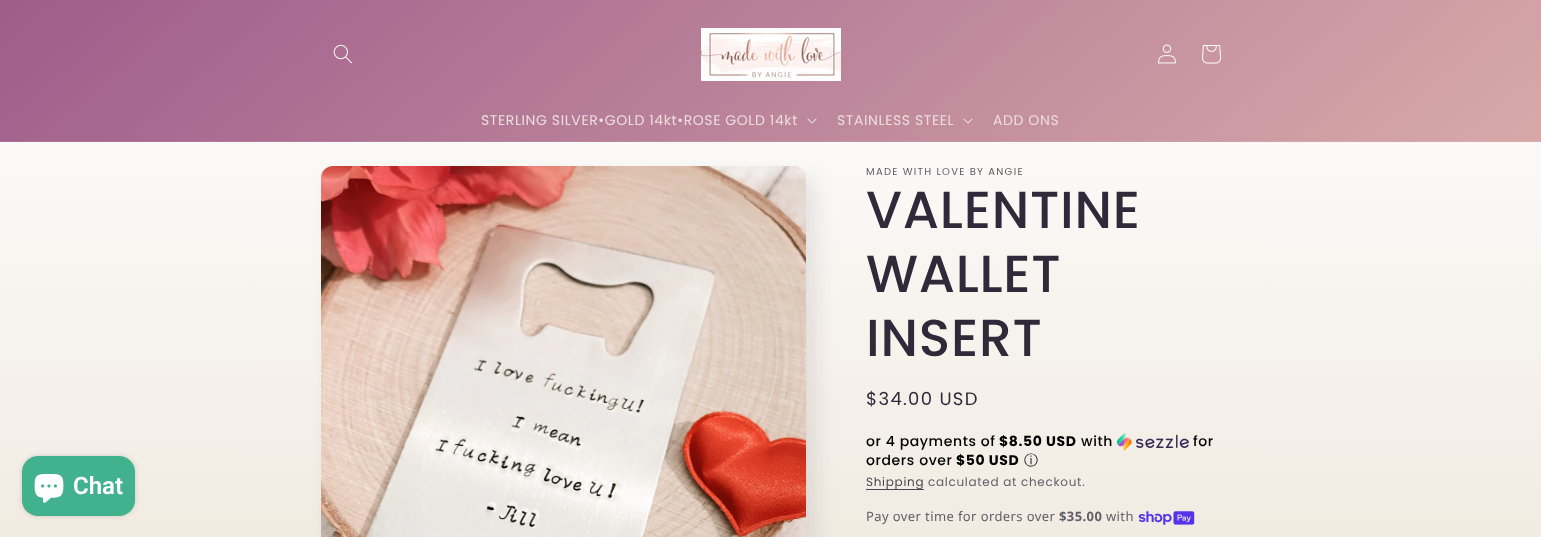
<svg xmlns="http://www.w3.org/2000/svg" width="1541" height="537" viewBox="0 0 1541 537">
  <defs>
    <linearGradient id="g1" gradientUnits="userSpaceOnUse" x1="771" y1="0" x2="771" y2="537"><stop offset="0" stop-color="rgb(255,255,255)"/><stop offset="1" stop-color="rgb(241,235,226)"/></linearGradient>
    <linearGradient id="g2" gradientUnits="userSpaceOnUse" x1="1221" y1="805" x2="320" y2="-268"><stop offset="0.23" stop-color="rgb(214,168,168)"/><stop offset="1" stop-color="rgb(158,92,139)"/></linearGradient>
    <linearGradient id="g3" gradientUnits="userSpaceOnUse" x1="1221" y1="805" x2="320" y2="-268"><stop offset="0.23" stop-color="rgb(217,174,174)"/><stop offset="1" stop-color="rgb(165,104,147)"/></linearGradient>
  </defs>
  <rect width="100%" height="100%" fill="rgb(255,255,255)"/>
  <rect x="0" y="142" width="1541" height="395" fill="url(#g1)"/>
  <rect x="0" y="0" width="1541" height="141" fill="url(#g2)"/>
  <rect x="0" y="141" width="1541" height="1" fill="url(#g3)"/>
  <image x="333" y="44" width="19" height="20" href="pic1.png"/>
  <image x="701" y="28" width="140" height="53" href="pic2.png"/>
  <image x="1158" y="44" width="18" height="20" href="pic3.png"/>
  <image x="1202" y="45" width="20" height="19" href="pic4.png"/>
  <text x="481" y="125" font-family="Poppins" font-size="14" letter-spacing="0.6" fill="rgb(237,222,221)">STERLING SILVER•GOLD 14kt•ROSE GOLD 14kt</text>
  <image x="807" y="118" width="10" height="6" href="pic5.png"/>
  <text x="837" y="125" font-family="Poppins" font-size="14" letter-spacing="0.6" fill="rgb(237,222,221)">STAINLESS STEEL</text>
  <image x="963" y="118" width="10" height="6" href="pic6.png"/>
  <text x="993" y="125" font-family="Poppins" font-size="14" letter-spacing="0.6" fill="rgb(237,222,221)">ADD ONS</text>
  <rect x="22" y="456" width="113" height="60" rx="16" fill="rgba(0,0,0,0.15)" filter="blur(2.5px)"/>
  <rect x="22" y="456" width="113" height="60" rx="16" fill="rgb(65,177,142)"/>
  <image x="34" y="474" width="30" height="29" href="pic7.png"/>
  <text x="73" y="494" font-family="Roboto" font-size="24" font-weight="600" fill="rgb(255,255,255)">Chat</text>
  <rect x="331" y="178" width="485" height="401" rx="12" fill="rgba(46,42,57,0.1)" filter="blur(10px)"/>
  <image x="321" y="166" width="485" height="371" href="pic8.png"/>
  <text x="866" y="175" font-family="Poppins" font-size="10" letter-spacing="1.3" fill="rgb(97,94,104)">MADE WITH LOVE BY ANGIE</text>
  <g font-family="Poppins" font-size="52" font-weight="500" letter-spacing="0.75" fill="rgb(46,42,57)">
    <text>
      <tspan x="866" y="228">VALENTINE</tspan>
      <tspan x="866" y="292">WALLET</tspan>
      <tspan x="866" y="356">INSERT</tspan>
    </text>
  </g>
  <text x="866" y="405" font-family="Poppins" font-size="18" letter-spacing="1.3" fill="rgb(46,42,57)">$34.00 USD</text>
  <text x="866" y="446" font-family="Poppins" font-size="14" font-weight="500" letter-spacing="0.6" fill="rgb(0,0,0)">or 4 payments of</text>
  <text x="999" y="446" font-family="Poppins" font-size="14" font-weight="bold" letter-spacing="0.6" fill="rgb(0,0,0)">$8.50 USD</text>
  <text x="1081" y="446" font-family="Poppins" font-size="14" font-weight="500" letter-spacing="0.6" fill="rgb(0,0,0)">with</text>
  <image x="1117" y="433" width="72" height="18" href="pic9.png"/>
  <g font-family="Poppins" font-size="14" font-weight="500" letter-spacing="0.6" fill="rgb(0,0,0)">
    <text x="1193" y="446">for</text>
    <text x="866" y="465">orders over</text>
  </g>
  <text x="956" y="465" font-family="Poppins" font-size="14" font-weight="bold" letter-spacing="0.6" fill="rgb(0,0,0)">$50 USD</text>
  <text x="1024" y="465" font-family="WenQuanYi Zen Hei" font-size="14" font-weight="500" letter-spacing="0.6" fill="rgb(0,0,0)">ⓘ</text>
  <rect x="866" y="489" width="58" height="1" fill="rgb(75,71,83)"/>
  <text x="866" y="486" font-family="Poppins" font-size="12" letter-spacing="0.7" fill="rgb(75,71,82)">Shipping</text>
  <text x="928" y="486" font-family="Poppins" font-size="12" letter-spacing="0.7" fill="rgb(97,94,104)">calculated at checkout.</text>
  <text x="866" y="521" font-family="Noto Sans" font-size="13" letter-spacing="0.4" fill="rgb(97,94,104)">Pay over time for orders over</text>
  <text x="1059" y="521" font-family="Noto Sans" font-size="13" font-weight="bold" letter-spacing="0.4" fill="rgb(97,94,104)">$35.00</text>
  <text x="1106" y="521" font-family="Noto Sans" font-size="13" letter-spacing="0.4" fill="rgb(97,94,104)">with</text>
  <image x="1138" y="511" width="57" height="14" href="pic10.png"/>
</svg>
